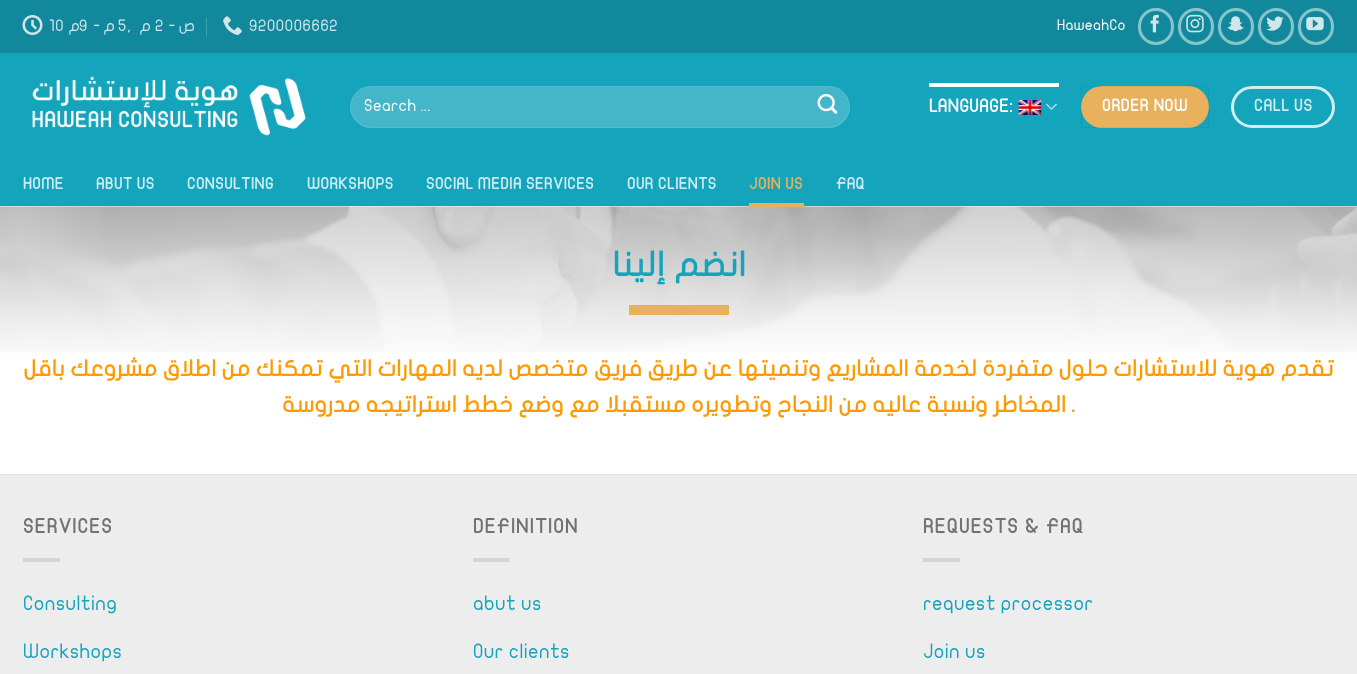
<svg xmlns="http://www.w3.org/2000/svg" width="1357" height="674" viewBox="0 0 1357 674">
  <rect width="100%" height="100%" fill="rgb(255,255,255)"/>
  <rect x="0" y="0" width="1357" height="53" fill="rgb(17,136,156)"/>
  <image x="22" y="15" width="21" height="20" href="pic1.png"/>
  <text x="49" y="31" font-family="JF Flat" font-size="16" letter-spacing="0.3" fill="rgb(207,231,235)">10</text>
  <text x="80" y="31" font-family="JF Flat" font-size="16" letter-spacing="0.3" direction="rtl" fill="rgb(207,231,235)">م</text>
  <text x="79" y="31" font-family="JF Flat" font-size="16" letter-spacing="0.3" fill="rgb(207,231,235)">9</text>
  <text x="115" y="31" word-spacing="-1" font-family="JF Flat" font-size="16" letter-spacing="0.3" direction="rtl" fill="rgb(207,231,235)">م -</text>
  <g font-family="JF Flat" font-size="16" letter-spacing="0.3" fill="rgb(207,231,235)">
    <text x="118" y="31">5</text>
    <text x="127" y="31">,</text>
  </g>
  <text x="151" y="31" font-family="JF Flat" font-size="16" letter-spacing="0.3" direction="rtl" fill="rgb(207,231,235)">م</text>
  <text x="155" y="31" font-family="JF Flat" font-size="16" letter-spacing="0.3" fill="rgb(207,231,235)">2</text>
  <text x="195" y="31" word-spacing="-1" font-family="JF Flat" font-size="16" letter-spacing="0.3" direction="rtl" fill="rgb(207,231,235)">ص -</text>
  <rect x="206" y="18" width="1" height="18" fill="rgb(65,160,176)"/>
  <image x="223" y="16" width="19" height="19" href="pic2.png"/>
  <text x="249" y="31" font-family="JF Flat" font-size="16" letter-spacing="0.3" fill="rgb(207,231,235)">9200006662</text>
  <text x="1057" y="30" font-family="JF Flat" font-size="15" fill="rgb(255,255,255)">HaweahCo</text>
  <rect x="1139.5" y="9.5" width="33" height="34" rx="16.5" fill="none" stroke="rgb(136,196,206)" stroke-width="3"/>
  <image x="1150" y="14" width="9" height="19" href="pic3.png"/>
  <rect x="1179.5" y="9.5" width="33" height="34" rx="16.5" fill="none" stroke="rgb(136,196,206)" stroke-width="3"/>
  <image x="1186" y="14" width="18" height="19" href="pic4.png"/>
  <rect x="1219.5" y="9.5" width="33" height="34" rx="16.5" fill="none" stroke="rgb(136,196,206)" stroke-width="3"/>
  <image x="1227" y="16" width="17" height="16" href="pic5.png"/>
  <rect x="1259.5" y="9.5" width="33" height="34" rx="16.5" fill="none" stroke="rgb(136,196,206)" stroke-width="3"/>
  <image x="1266" y="16" width="18" height="15" href="pic6.png"/>
  <rect x="1299.5" y="9.5" width="33" height="34" rx="16.5" fill="none" stroke="rgb(136,196,206)" stroke-width="3"/>
  <image x="1306" y="17" width="18" height="14" href="pic7.png"/>
  <rect x="0" y="53" width="1357" height="153" fill="rgb(20,164,188)"/>
  <image x="32" y="76" width="274" height="60" href="pic8.png"/>
  <rect x="350" y="86" width="500" height="42" rx="21" fill="rgb(67,182,201)"/>
  <rect x="350.5" y="86.5" width="499" height="41" rx="20.5" fill="none" stroke="rgba(255,255,255,0.09)"/>
  <text x="364" y="111" font-family="JF Flat" font-size="16.5" fill="rgb(255,255,255)">Search ...</text>
  <image x="817" y="93" width="21" height="21" href="pic9.png"/>
  <rect x="929" y="83" width="130" height="4" fill="rgb(255,255,255)"/>
  <text x="929" y="112" font-family="JF Flat" font-size="18" font-weight="bold" letter-spacing="0.25" fill="rgb(255,255,255)">LANGUAGE:</text>
  <image x="1018" y="100" width="24" height="15" href="pic10.png"/>
  <image x="1045" y="103" width="12" height="7" href="pic11.png"/>
  <rect x="1081" y="86" width="128" height="42" rx="21" fill="rgb(232,177,93)"/>
  <rect x="1081.5" y="86.5" width="127" height="41" fill="none" stroke="rgba(0,0,0,0.05)"/>
  <text x="1102" y="111" font-family="JF Flat" font-size="16.5" font-weight="bold" letter-spacing="0.5" fill="rgb(255,255,255)">ORDER NOW</text>
  <rect x="1232.5" y="87.5" width="101" height="39" rx="19.5" fill="none" stroke="rgb(208,237,242)" stroke-width="3"/>
  <text x="1254" y="111" font-family="JF Flat" font-size="16.5" font-weight="bold" letter-spacing="0.5" fill="rgb(208,237,242)">CALL US</text>
  <g font-family="JF Flat" font-size="16" font-weight="bold" letter-spacing="0.3" fill="rgb(208,237,242)">
    <text x="23" y="189">HOME</text>
    <text x="96" y="189">ABUT US</text>
    <text x="187" y="189">CONSULTING</text>
    <text x="307" y="189">WORKSHOPS</text>
    <text x="426" y="189">SOCIAL MEDIA SERVICES</text>
    <text x="627" y="189">OUR CLIENTS</text>
  </g>
  <text x="749" y="189" font-family="JF Flat" font-size="16" font-weight="bold" letter-spacing="0.3" fill="rgb(232,177,93)">JOIN US</text>
  <image x="0" y="206" width="1357" height="147" href="pic12.png"/>
  <rect x="749" y="203" width="55" height="4" fill="rgb(232,177,93)"/>
  <text x="836" y="189" font-family="JF Flat" font-size="16" font-weight="bold" letter-spacing="0.3" fill="rgb(208,237,242)">FAQ</text>
  <text x="746" y="276" font-family="JF Flat" font-size="34" font-weight="bold" direction="rtl" fill="rgb(20,164,188)">انضم إلينا</text>
  <rect x="629" y="305" width="100" height="10" fill="rgb(232,177,93)"/>
  <g font-family="JF Flat" font-size="22.5" font-weight="bold" direction="rtl" fill="rgb(255,153,0)">
    <text x="1334" y="376">تقدم هوية للاستشارات حلول متفردة لخدمة المشاريع وتنميتها عن طريق فريق متخصص لديه المهارات التي تمكنك من اطلاق مشروعك باقل</text>
    <text x="1066" y="412">المخاطر ونسبة عاليه من النجاح وتطويره مستقبلا مع وضع خطط استراتيجه مدروسة</text>
  </g>
  <text x="1071" y="412" font-family="JF Flat" font-size="22.5" font-weight="bold" fill="rgb(255,153,0)">.</text>
  <rect x="0" y="475" width="1357" height="199" fill="rgb(237,237,237)"/>
  <rect x="0" y="474" width="1357" height="1" fill="rgb(225,225,225)"/>
  <text x="23" y="533" font-family="JF Flat" font-size="20" font-weight="bold" letter-spacing="1" fill="rgb(114,114,114)">SERVICES</text>
  <rect x="23" y="558" width="37" height="4" fill="rgb(213,213,213)"/>
  <g font-family="JF Flat" font-size="20" fill="rgb(20,164,188)">
    <text x="23" y="610">Consulting</text>
    <text x="23" y="658">Workshops</text>
  </g>
  <text x="473" y="533" font-family="JF Flat" font-size="20" font-weight="bold" letter-spacing="1" fill="rgb(114,114,114)">DEFINITION</text>
  <rect x="473" y="558" width="37" height="4" fill="rgb(213,213,213)"/>
  <g font-family="JF Flat" font-size="20" fill="rgb(20,164,188)">
    <text x="473" y="610">abut us</text>
    <text x="473" y="658">Our clients</text>
  </g>
  <text x="923" y="533" font-family="JF Flat" font-size="20" font-weight="bold" letter-spacing="1" fill="rgb(114,114,114)">REQUESTS &amp; FAQ</text>
  <rect x="923" y="558" width="37" height="4" fill="rgb(213,213,213)"/>
  <g font-family="JF Flat" font-size="20" fill="rgb(20,164,188)">
    <text x="923" y="610">request processor</text>
    <text x="923" y="658">Join us</text>
  </g>
</svg>
